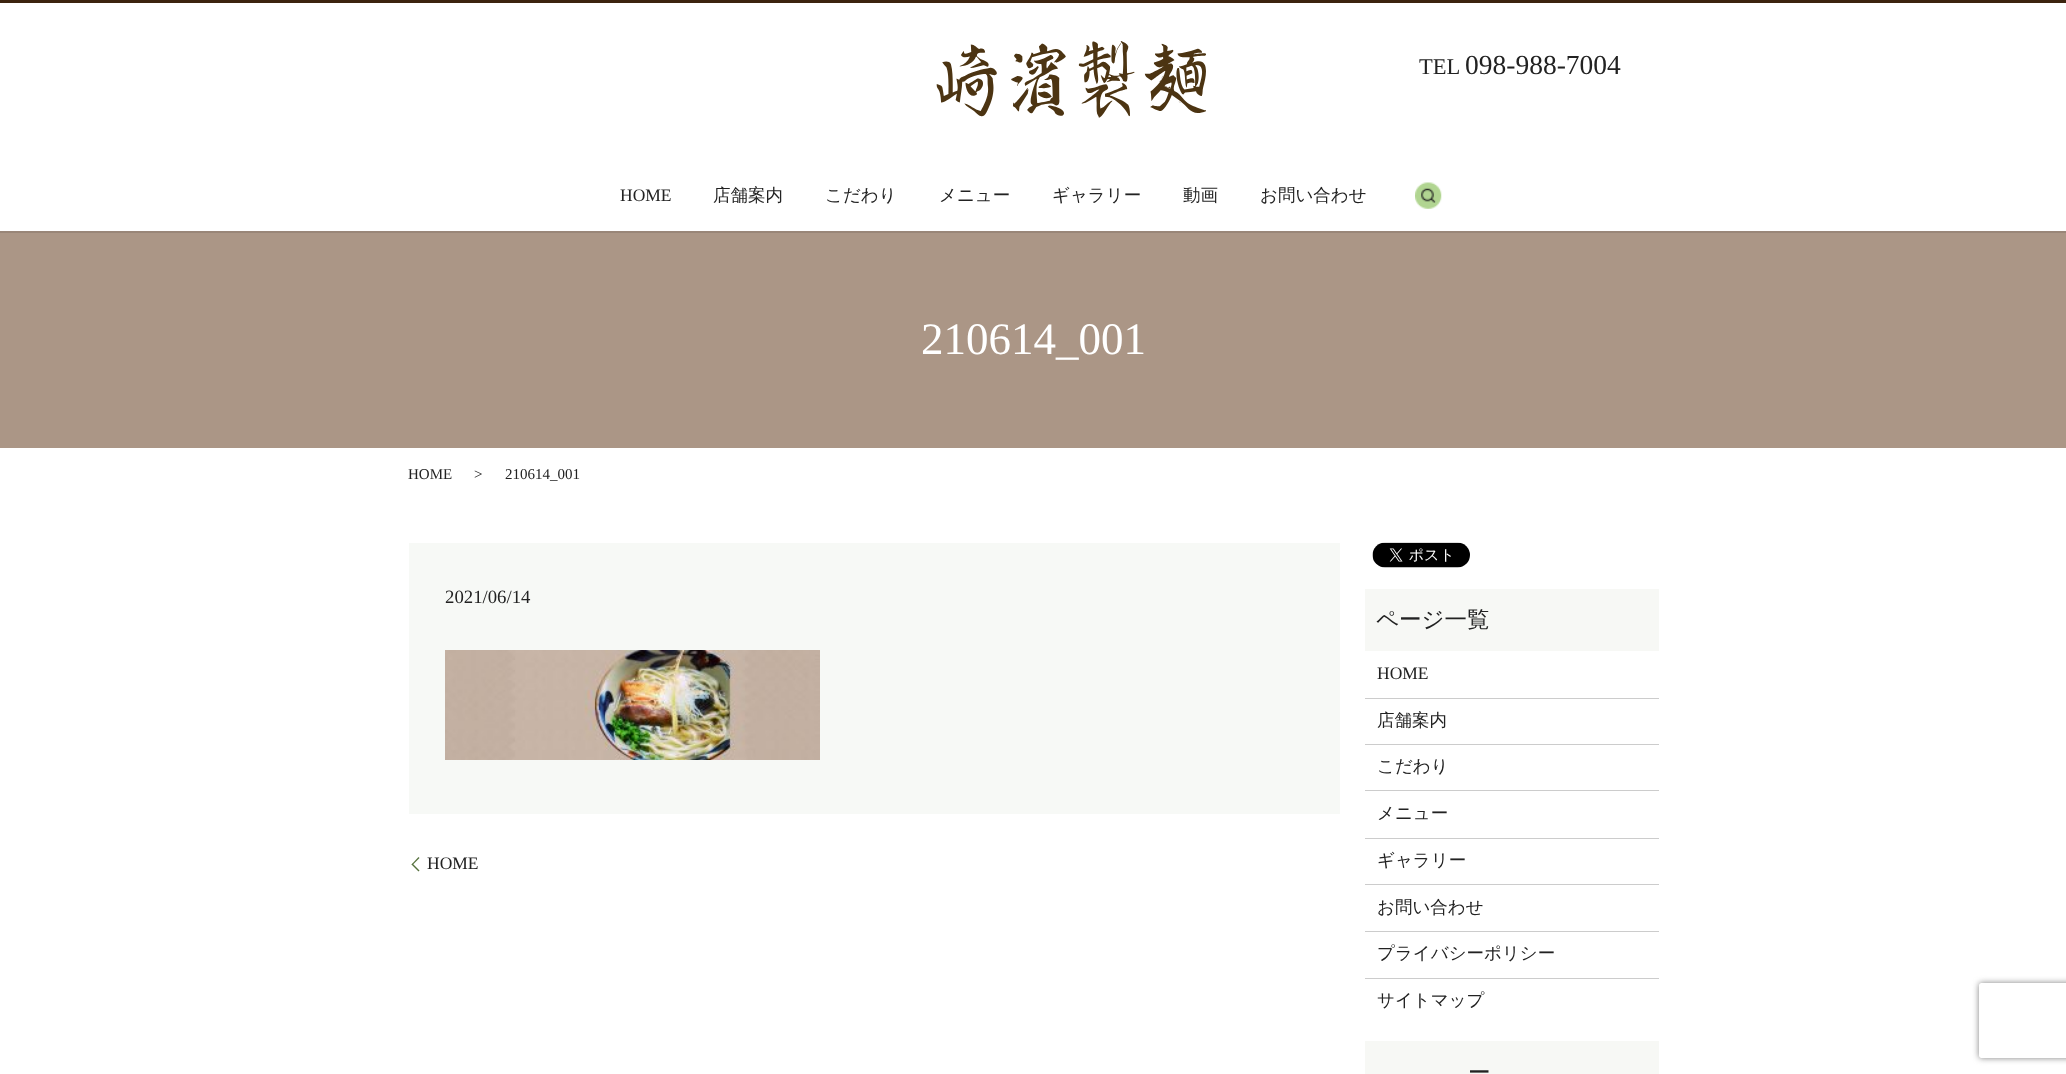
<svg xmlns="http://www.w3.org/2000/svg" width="2066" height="1074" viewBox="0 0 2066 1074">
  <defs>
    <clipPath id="clip1"><rect x="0" y="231" width="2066" height="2"/></clipPath>
    <clipPath id="clip2"><path d="M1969 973H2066V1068H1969ZM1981.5 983H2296.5C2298 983 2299 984 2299 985.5V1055.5C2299 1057 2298 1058 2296.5 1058H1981.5C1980 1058 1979 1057 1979 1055.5V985.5C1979 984 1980 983 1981.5 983Z" clip-rule="evenodd"/></clipPath>
  </defs>
  <rect width="100%" height="100%" fill="rgb(255,255,255)"/>
  <rect x="0" y="231" width="2066" height="217" fill="rgb(171,150,134)"/>
  <g clip-path="url(#clip1)">
    <rect x="0" y="1" width="2066" height="232" fill="rgba(0,0,0,0.1)" filter="blur(0.5px)"/>
  </g>
  <rect x="0" y="0" width="2066" height="3" fill="rgb(60,35,15)"/>
  <image x="936" y="41" width="270" height="77" href="pic1.png"/>
  <text x="1419" y="74" font-family="Liberation Serif" font-size="22.5" fill="rgb(34,34,34)">TEL</text>
  <text x="1465" y="74" font-family="Liberation Serif" font-size="27.5" fill="rgb(34,34,34)">098-988-7004</text>
  <text x="620" y="201" font-family="Liberation Serif" font-size="17.5" fill="rgb(34,34,34)">HOME</text>
  <g font-family="WenQuanYi Zen Hei" font-size="17.5" font-weight="500" fill="rgb(34,34,34)">
    <text x="713" y="201">店舗案内</text>
    <text x="825" y="201">こだわり</text>
    <text x="939" y="201">メニュー</text>
    <text x="1052" y="201">ギャラリー</text>
    <text x="1183" y="201">動画</text>
    <text x="1260" y="201">お問い合わせ</text>
  </g>
  <image x="1415" y="182" width="27" height="27" href="pic2.png"/>
  <text x="921" y="354" font-family="Liberation Serif" font-size="45" fill="rgb(255,255,255)">210614_001</text>
  <g font-family="Liberation Serif" font-size="15" fill="rgb(34,34,34)">
    <text x="408" y="479">HOME</text>
    <text x="474" y="479">&gt;</text>
    <text x="505" y="479">210614_001</text>
  </g>
  <rect x="409" y="543" width="931" height="271" fill="rgb(247,249,246)"/>
  <text x="445" y="603" font-family="Liberation Serif" font-size="18.75" fill="rgb(34,34,34)">2021/06/14</text>
  <image x="445" y="650" width="375" height="110" href="pic3.png"/>
  <path d="M411.5 864.5L418.5 857L419.5 858L412.5 865Z" fill="rgb(86,113,61)"/>
  <text x="427" y="869" font-family="Liberation Serif" font-size="17.5" fill="rgb(34,34,34)">HOME</text>
  <path d="M418.5 871.5L411.5 864.5L412.5 863.5L419.5 870.5Z" fill="rgb(86,113,61)"/>
  <image x="1372" y="542" width="98" height="26" href="pic4.png"/>
  <rect x="1365" y="589" width="294" height="62" fill="rgb(247,248,245)"/>
  <text x="1376" y="627" font-family="WenQuanYi Zen Hei" font-size="22.5" font-weight="500" fill="rgb(34,34,34)">ページ一覧</text>
  <rect x="1365" y="698" width="294" height="1" fill="rgb(204,204,204)"/>
  <text x="1377" y="679" font-family="Liberation Serif" font-size="17.5" fill="rgb(34,34,34)">HOME</text>
  <rect x="1365" y="744" width="294" height="1" fill="rgb(204,204,204)"/>
  <text x="1377" y="726" font-family="WenQuanYi Zen Hei" font-size="17.5" font-weight="500" fill="rgb(34,34,34)">店舗案内</text>
  <rect x="1365" y="790" width="294" height="1" fill="rgb(204,204,204)"/>
  <text x="1377" y="772" font-family="WenQuanYi Zen Hei" font-size="17.5" font-weight="500" fill="rgb(34,34,34)">こだわり</text>
  <rect x="1365" y="838" width="294" height="1" fill="rgb(204,204,204)"/>
  <text x="1377" y="819" font-family="WenQuanYi Zen Hei" font-size="17.5" font-weight="500" fill="rgb(34,34,34)">メニュー</text>
  <rect x="1365" y="884" width="294" height="1" fill="rgb(204,204,204)"/>
  <text x="1377" y="866" font-family="WenQuanYi Zen Hei" font-size="17.5" font-weight="500" fill="rgb(34,34,34)">ギャラリー</text>
  <rect x="1365" y="931" width="294" height="1" fill="rgb(204,204,204)"/>
  <text x="1377" y="913" font-family="WenQuanYi Zen Hei" font-size="17.5" font-weight="500" fill="rgb(34,34,34)">お問い合わせ</text>
  <rect x="1365" y="978" width="294" height="1" fill="rgb(204,204,204)"/>
  <g font-family="WenQuanYi Zen Hei" font-size="17.5" font-weight="500" fill="rgb(34,34,34)">
    <text x="1377" y="959">プライバシーポリシー</text>
    <text x="1377" y="1006">サイトマップ</text>
  </g>
  <rect x="1365" y="1041" width="294" height="33" fill="rgb(247,248,245)"/>
  <text x="1468" y="1080" font-family="WenQuanYi Zen Hei" font-size="22.5" font-weight="500" fill="rgb(34,34,34)">ー</text>
  <g clip-path="url(#clip2)">
    <rect x="1979" y="983" width="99" height="75" rx="2.5" fill="rgb(128,128,128)" filter="blur(3px)"/>
  </g>
</svg>
